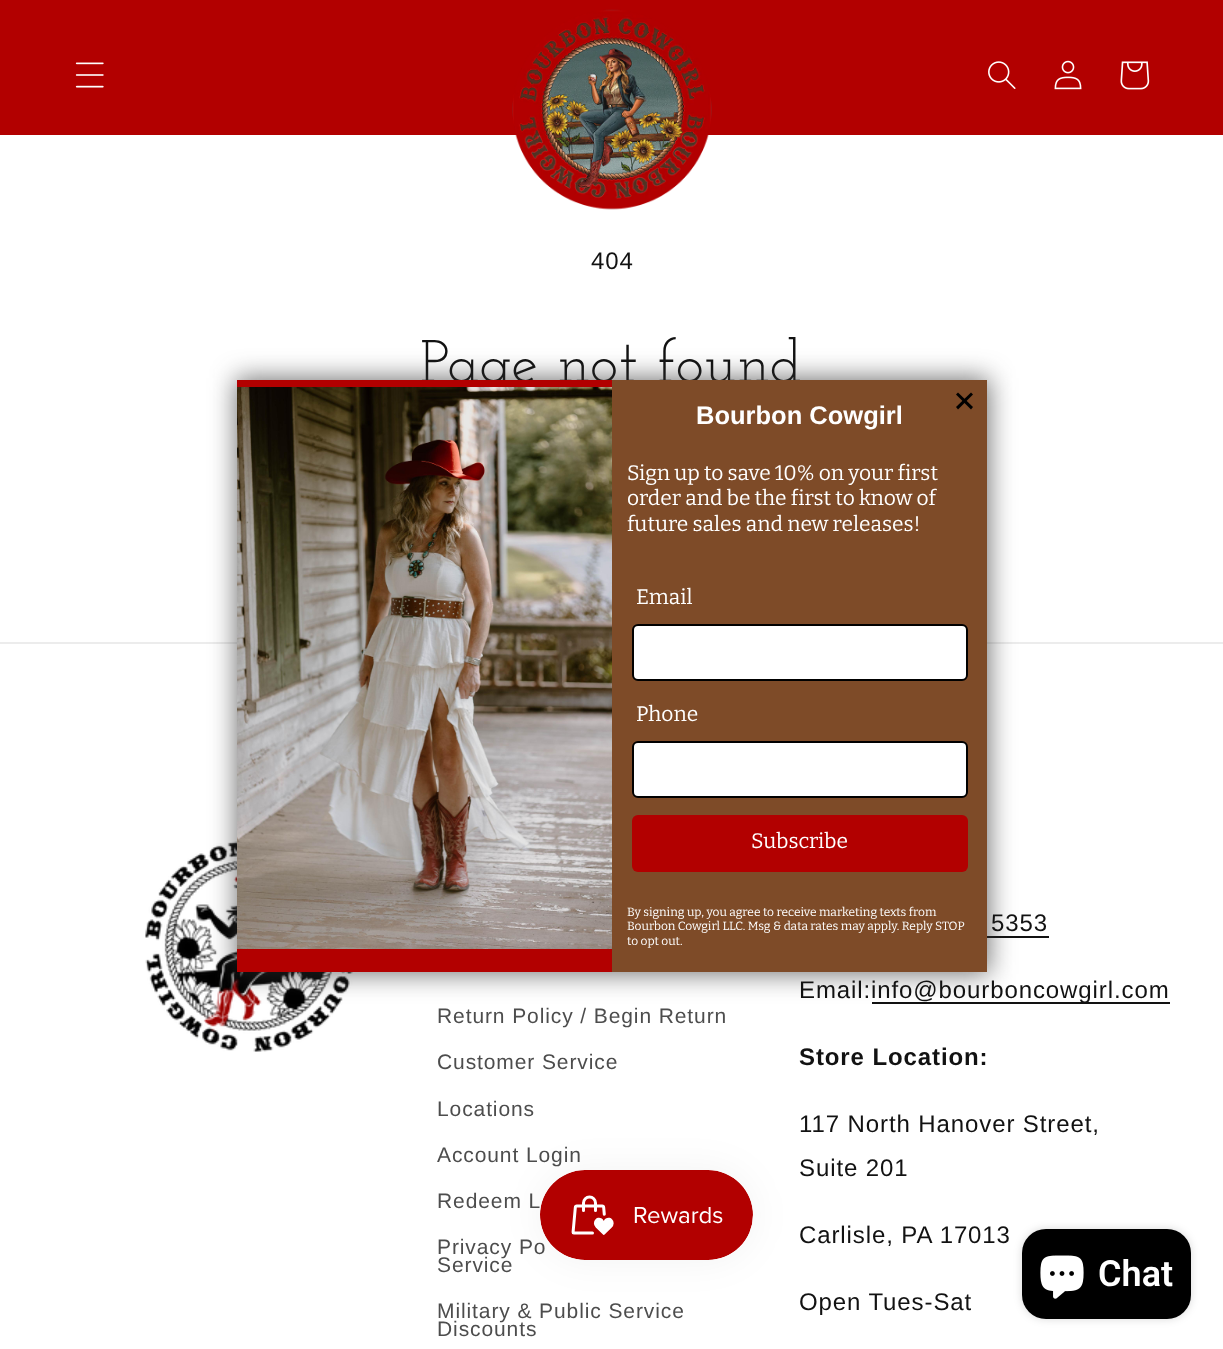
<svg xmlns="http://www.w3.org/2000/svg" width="1223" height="1349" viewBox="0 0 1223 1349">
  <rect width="100%" height="100%" fill="rgb(255,255,255)"/>
  <rect x="0" y="0" width="1223" height="135" fill="rgb(178,0,0)"/>
  <image x="75" y="62" width="29" height="26" href="pic1.png"/>
  <image x="512" y="9" width="200" height="201" href="pic2.png"/>
  <image x="988" y="61" width="28" height="28" href="pic3.png"/>
  <image x="1054" y="60" width="28" height="30" href="pic4.png"/>
  <image x="1120" y="61" width="30" height="29" href="pic5.png"/>
  <text x="591" y="269" font-family="Liberation Sans" font-size="24" letter-spacing="0.9" fill="rgb(18,18,18)">404</text>
  <text x="420" y="382" font-family="Josefin Slab" font-size="60" letter-spacing="0.9" fill="rgb(18,18,18)">Page not found</text>
  <rect x="0" y="642" width="1223" height="2" fill="rgb(236,236,236)"/>
  <image x="145" y="841" width="208" height="211" href="pic7.png"/>
  <rect x="987" y="936" width="62" height="2" fill="rgb(18,18,18)"/>
  <rect x="872" y="1002" width="298" height="2" fill="rgb(18,18,18)"/>
  <rect x="236" y="378" width="753" height="596" fill="rgba(50,50,50,0.69)" filter="blur(13px)"/>
  <rect x="612" y="380" width="375" height="592" fill="rgb(126,75,40)"/>
  <path d="M971 392.5L973 394.5L958 409.5L956 407Z" fill="rgb(0,0,0)"/>
  <path d="M956 394.5L958 392.5L973 407L971 409.5Z" fill="rgb(0,0,0)"/>
  <rect x="237" y="380" width="375" height="592" fill="rgb(178,0,0)"/>
  <image x="237" y="387" width="375" height="562" href="pic6.png"/>
  <text x="696" y="424" font-family="Liberation Sans" font-size="25.5" font-weight="bold" fill="rgb(255,255,255)">Bourbon Cowgirl</text>
  <g font-family="Bitter" font-size="21" fill="rgb(255,255,255)">
    <text>
      <tspan x="627" y="480">Sign up to save 10% on your first</tspan>
      <tspan x="627" y="505">order and be the first to know of</tspan>
      <tspan x="627" y="531">future sales and new releases!</tspan>
    </text>
    <text x="636" y="604">Email</text>
  </g>
  <rect x="633" y="625" width="334" height="55" rx="5" fill="rgb(255,255,255)" stroke="rgb(0,0,0)" stroke-width="2"/>
  <text x="636" y="721" font-family="Bitter" font-size="21" fill="rgb(255,255,255)">Phone</text>
  <rect x="633" y="742" width="334" height="55" rx="5" fill="rgb(255,255,255)" stroke="rgb(0,0,0)" stroke-width="2"/>
  <rect x="632" y="815" width="336" height="57" rx="6" fill="rgb(178,0,0)"/>
  <text x="751" y="848" font-family="Bitter" font-size="21" fill="rgb(255,255,255)">Subscribe</text>
  <g font-family="Bitter" font-size="12" fill="rgb(255,255,255)">
    <text>
      <tspan x="627" y="916">By signing up, you agree to receive marketing texts from</tspan>
      <tspan x="627" y="930">Bourbon Cowgirl LLC. Msg &amp; data rates may apply. Reply STOP</tspan>
      <tspan x="627" y="945">to opt out.</tspan>
    </text>
  </g>
  <g font-family="Liberation Sans" font-size="21" letter-spacing="0.9" fill="rgb(77,77,77)">
    <text x="437" y="1023">Return Policy / Begin Return</text>
    <text x="437" y="1069">Customer Service</text>
    <text x="437" y="1116">Locations</text>
    <text x="437" y="1162">Account Login</text>
    <text x="437" y="1208">Redeem L</text>
    <text>
      <tspan x="437" y="1254">Privacy Po</tspan>
      <tspan x="437" y="1272">Service</tspan>
    </text>
    <text>
      <tspan x="437" y="1318">Military &amp; Public Service</tspan>
      <tspan x="437" y="1336">Discounts</tspan>
    </text>
  </g>
  <g font-family="Liberation Sans" font-size="24" letter-spacing="0.9" fill="rgb(18,18,18)">
    <text x="991" y="931">5353</text>
    <text x="799" y="998">Email:</text>
    <text x="871" y="998">info@bourboncowgirl.com</text>
  </g>
  <text x="799" y="1065" font-family="Liberation Sans" font-size="24" font-weight="bold" letter-spacing="0.9" fill="rgb(18,18,18)">Store Location:</text>
  <g font-family="Liberation Sans" font-size="24" letter-spacing="0.9" fill="rgb(18,18,18)">
    <text>
      <tspan x="799" y="1132">117 North Hanover Street,</tspan>
      <tspan x="799" y="1176">Suite 201</tspan>
    </text>
    <text x="799" y="1243">Carlisle, PA 17013</text>
    <text x="799" y="1310">Open Tues-Sat</text>
  </g>
  <rect x="540" y="1170" width="213" height="90" rx="45" fill="rgba(0,0,0,0.05)" filter="blur(19px)"/>
  <image x="540" y="1170" width="213" height="90" href="pic8.png"/>
  <rect x="1022" y="1229" width="169" height="90" rx="24" fill="rgba(0,0,0,0.15)" filter="blur(4px)"/>
  <rect x="1022" y="1229" width="169" height="90" rx="24" fill="rgb(0,0,0)"/>
  <image x="1040" y="1255" width="44" height="44" href="pic9.png"/>
  <text x="1098" y="1286" font-family="Roboto" font-size="36" font-weight="600" fill="rgb(255,255,255)">Chat</text>
</svg>
